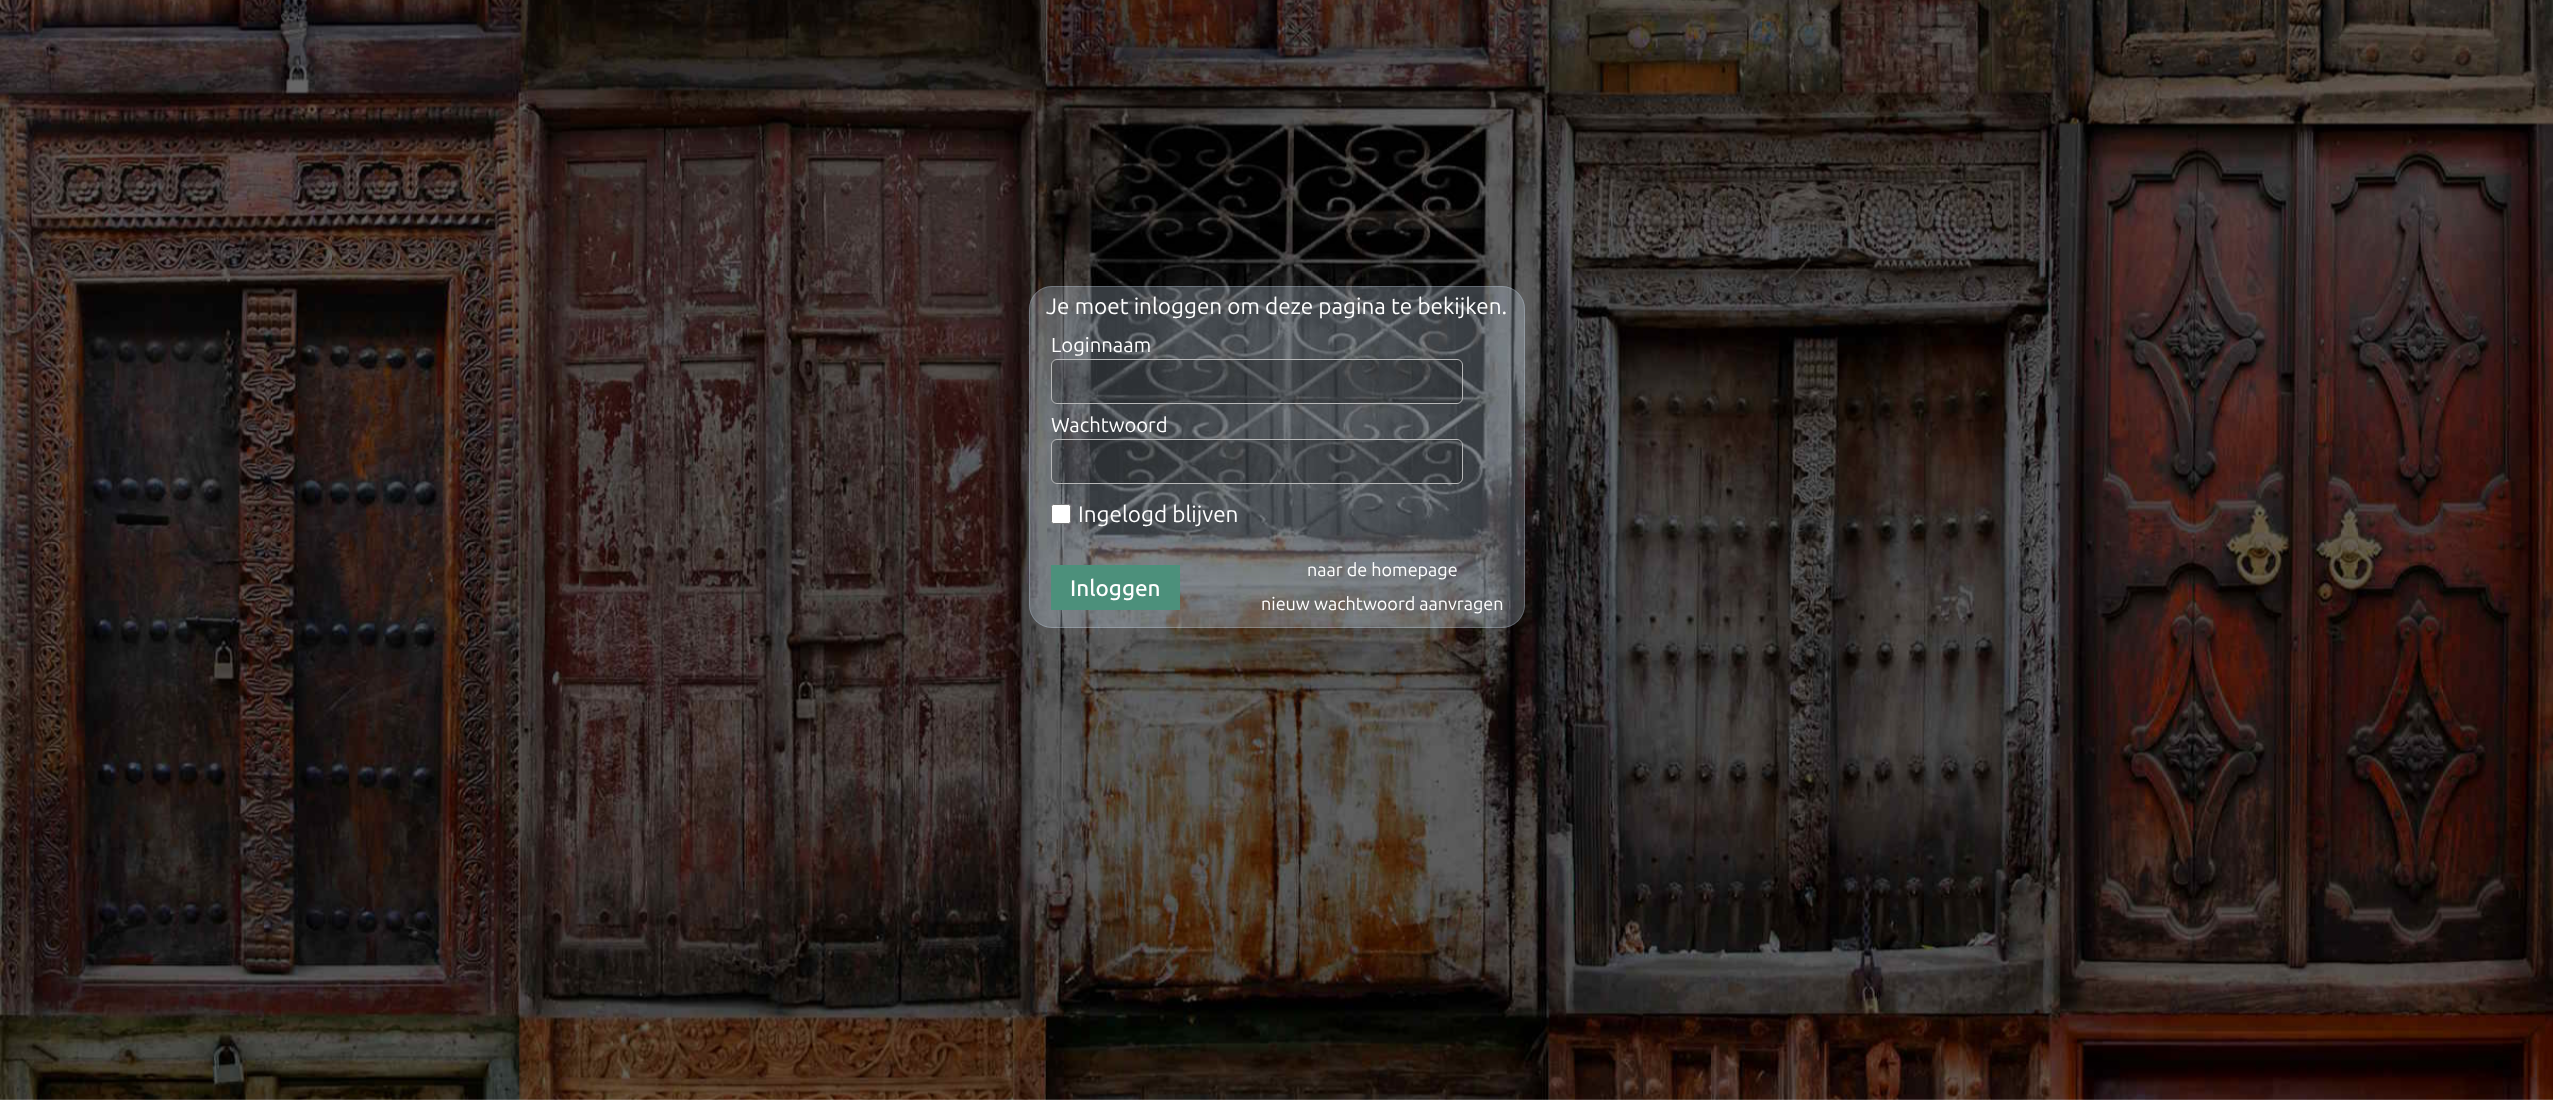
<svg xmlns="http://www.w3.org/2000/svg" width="2553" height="1100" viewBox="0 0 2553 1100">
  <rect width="100%" height="100%" fill="rgb(255,255,255)"/>
  <image x="0" y="0" width="2553" height="1100" href="pic1.png"/>
  <rect x="1029" y="286" width="496" height="342" rx="23" fill="rgba(215,235,255,0.25)"/>
  <rect x="1029.5" y="286.5" width="495" height="341" rx="22.5" fill="none" stroke="rgba(215,235,255,0.25)"/>
  <text x="1046" y="314" font-family="Ubuntu" font-size="22.5" fill="rgb(255,255,255)">Je moet inloggen om deze pagina te bekijken.</text>
  <text x="1051" y="352" font-family="Ubuntu" font-size="20.25" fill="rgb(255,255,255)">Loginnaam</text>
  <rect x="1051.5" y="359.5" width="411" height="44" rx="5.5" fill="rgba(0,0,0,0.2)" stroke="rgb(184,184,184)"/>
  <text x="1051" y="432" font-family="Ubuntu" font-size="20.25" fill="rgb(255,255,255)">Wachtwoord</text>
  <rect x="1051.5" y="439.5" width="411" height="44" rx="5.5" fill="rgba(0,0,0,0.2)" stroke="rgb(184,184,184)"/>
  <rect x="1051.5" y="504.5" width="19" height="19" rx="2" fill="rgb(255,255,255)" stroke="rgb(118,118,118)"/>
  <text x="1078" y="522" font-family="Ubuntu" font-size="22.5" fill="rgb(255,255,255)">Ingelogd blijven</text>
  <rect x="1051" y="565" width="129" height="45" fill="rgb(76,144,123)"/>
  <text x="1070" y="596" font-family="Ubuntu" font-size="22.5" font-weight="500" fill="rgb(255,255,255)">Inloggen</text>
  <g font-family="Ubuntu" font-size="18" fill="rgb(255,255,255)">
    <text x="1307" y="576">naar de homepage</text>
    <text x="1261" y="610">nieuw wachtwoord aanvragen</text>
  </g>
</svg>
